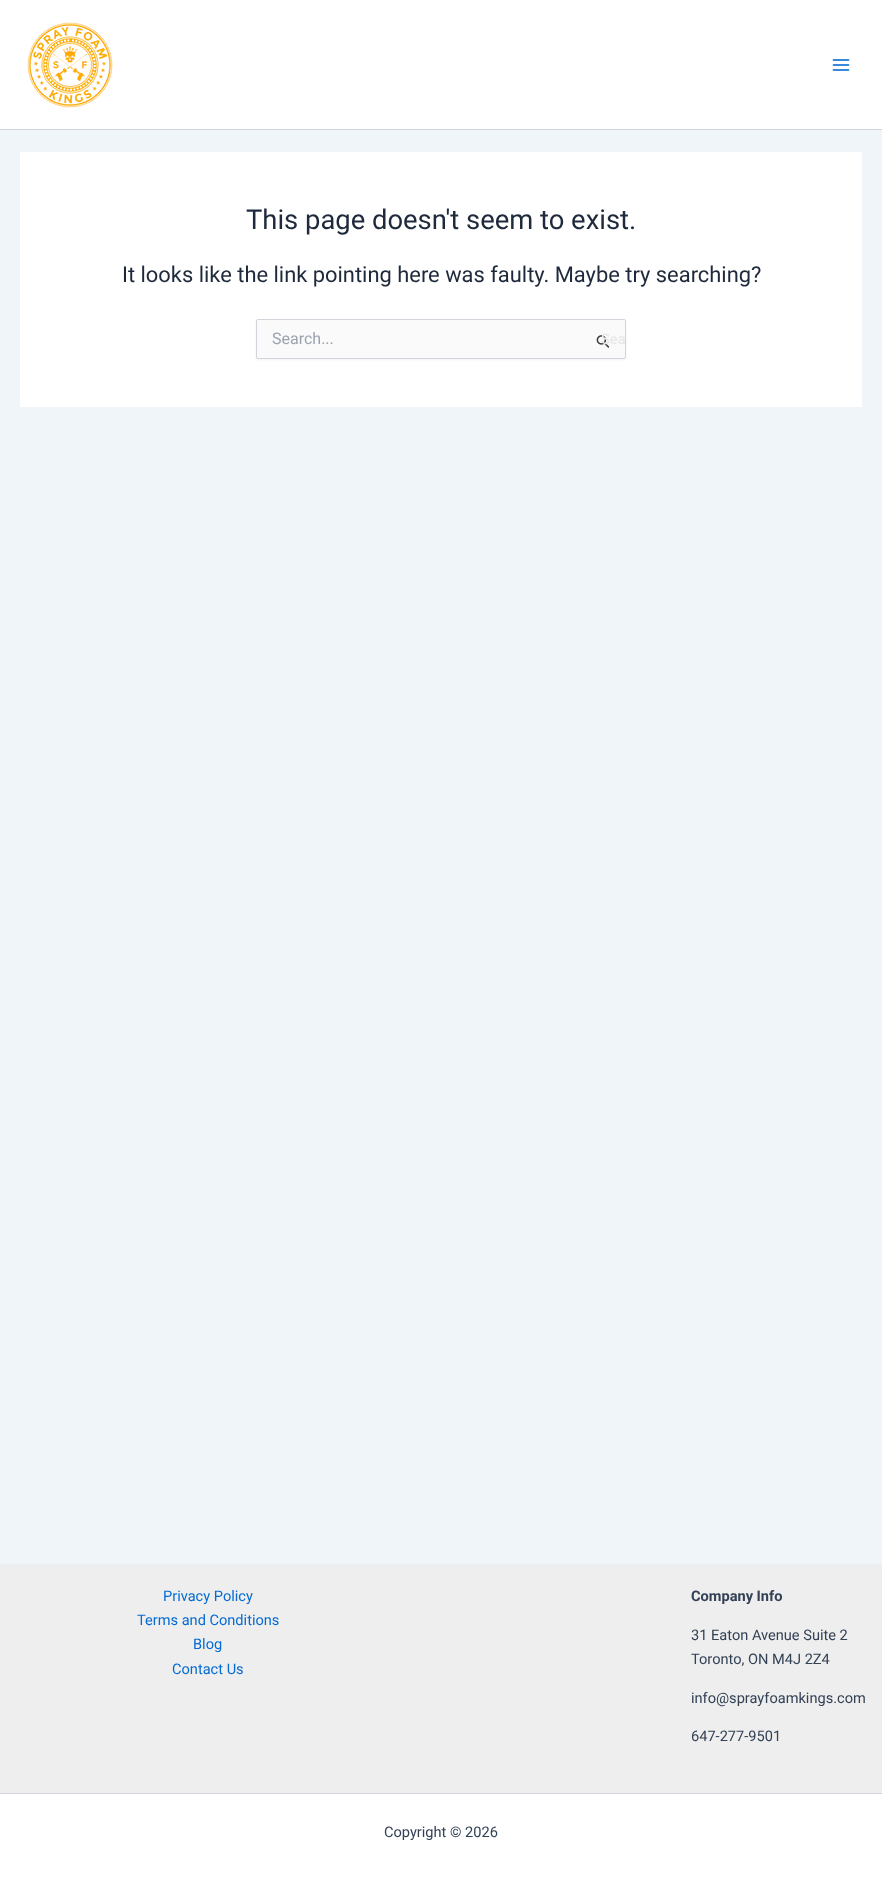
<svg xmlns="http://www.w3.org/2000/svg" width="882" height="1894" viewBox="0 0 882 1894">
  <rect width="100%" height="100%" fill="rgb(240,245,250)"/>
  <rect x="0" y="0" width="882" height="129" fill="rgb(255,255,255)"/>
  <rect x="0" y="129" width="882" height="1" fill="rgb(209,213,219)"/>
  <image x="26" y="22" width="87" height="86" href="pic1.png"/>
  <image x="832" y="59" width="18" height="12" href="pic2.png"/>
  <rect x="20" y="152" width="842" height="255" fill="rgb(255,255,255)"/>
  <text x="246" y="229" font-family="Roboto" font-size="27.4" fill="rgb(30,41,59)">This page doesn't seem to exist.</text>
  <text x="122" y="282" font-family="Roboto" font-size="21.9" fill="rgb(30,41,59)">It looks like the link pointing here was faulty. Maybe try searching?</text>
  <rect x="256" y="320" width="370" height="40" rx="2" fill="rgba(0,0,0,0.05)" filter="blur(1px)"/>
  <rect x="256.5" y="319.5" width="369" height="39" rx="1.5" fill="rgb(250,250,250)" stroke="rgb(209,213,219)"/>
  <text x="272" y="344" font-family="Roboto" font-size="16" fill="rgb(156,163,175)">Search...</text>
  <image x="596" y="335" width="13" height="13" href="pic3.png"/>
  <text x="601" y="344" font-family="Roboto" font-size="14.6" font-weight="500" fill="rgb(232,232,232)">Sea</text>
  <rect x="0" y="1564" width="882" height="229" fill="rgb(238,238,238)"/>
  <g font-family="Roboto" font-size="14.6" fill="rgb(4,107,210)">
    <text x="163" y="1601">Privacy Policy</text>
    <text x="137" y="1625">Terms and Conditions</text>
    <text x="193" y="1649">Blog</text>
    <text x="172" y="1674">Contact Us</text>
  </g>
  <text x="691" y="1601" font-family="Roboto" font-size="14.6" font-weight="bold" fill="rgb(51,65,85)">Company Info</text>
  <g font-family="Roboto" font-size="14.6" fill="rgb(51,65,85)">
    <text>
      <tspan x="691" y="1640">31 Eaton Avenue Suite 2</tspan>
      <tspan x="691" y="1664">Toronto, ON M4J 2Z4</tspan>
    </text>
    <text x="691" y="1703">info@sprayfoamkings.com</text>
    <text x="691" y="1741">647-277-9501</text>
  </g>
  <rect x="0" y="1794" width="882" height="100" fill="rgb(255,255,255)"/>
  <rect x="0" y="1793" width="882" height="1" fill="rgb(209,213,219)"/>
  <text x="384" y="1837" font-family="Roboto" font-size="14.6" fill="rgb(51,65,85)">Copyright © 2026</text>
</svg>
